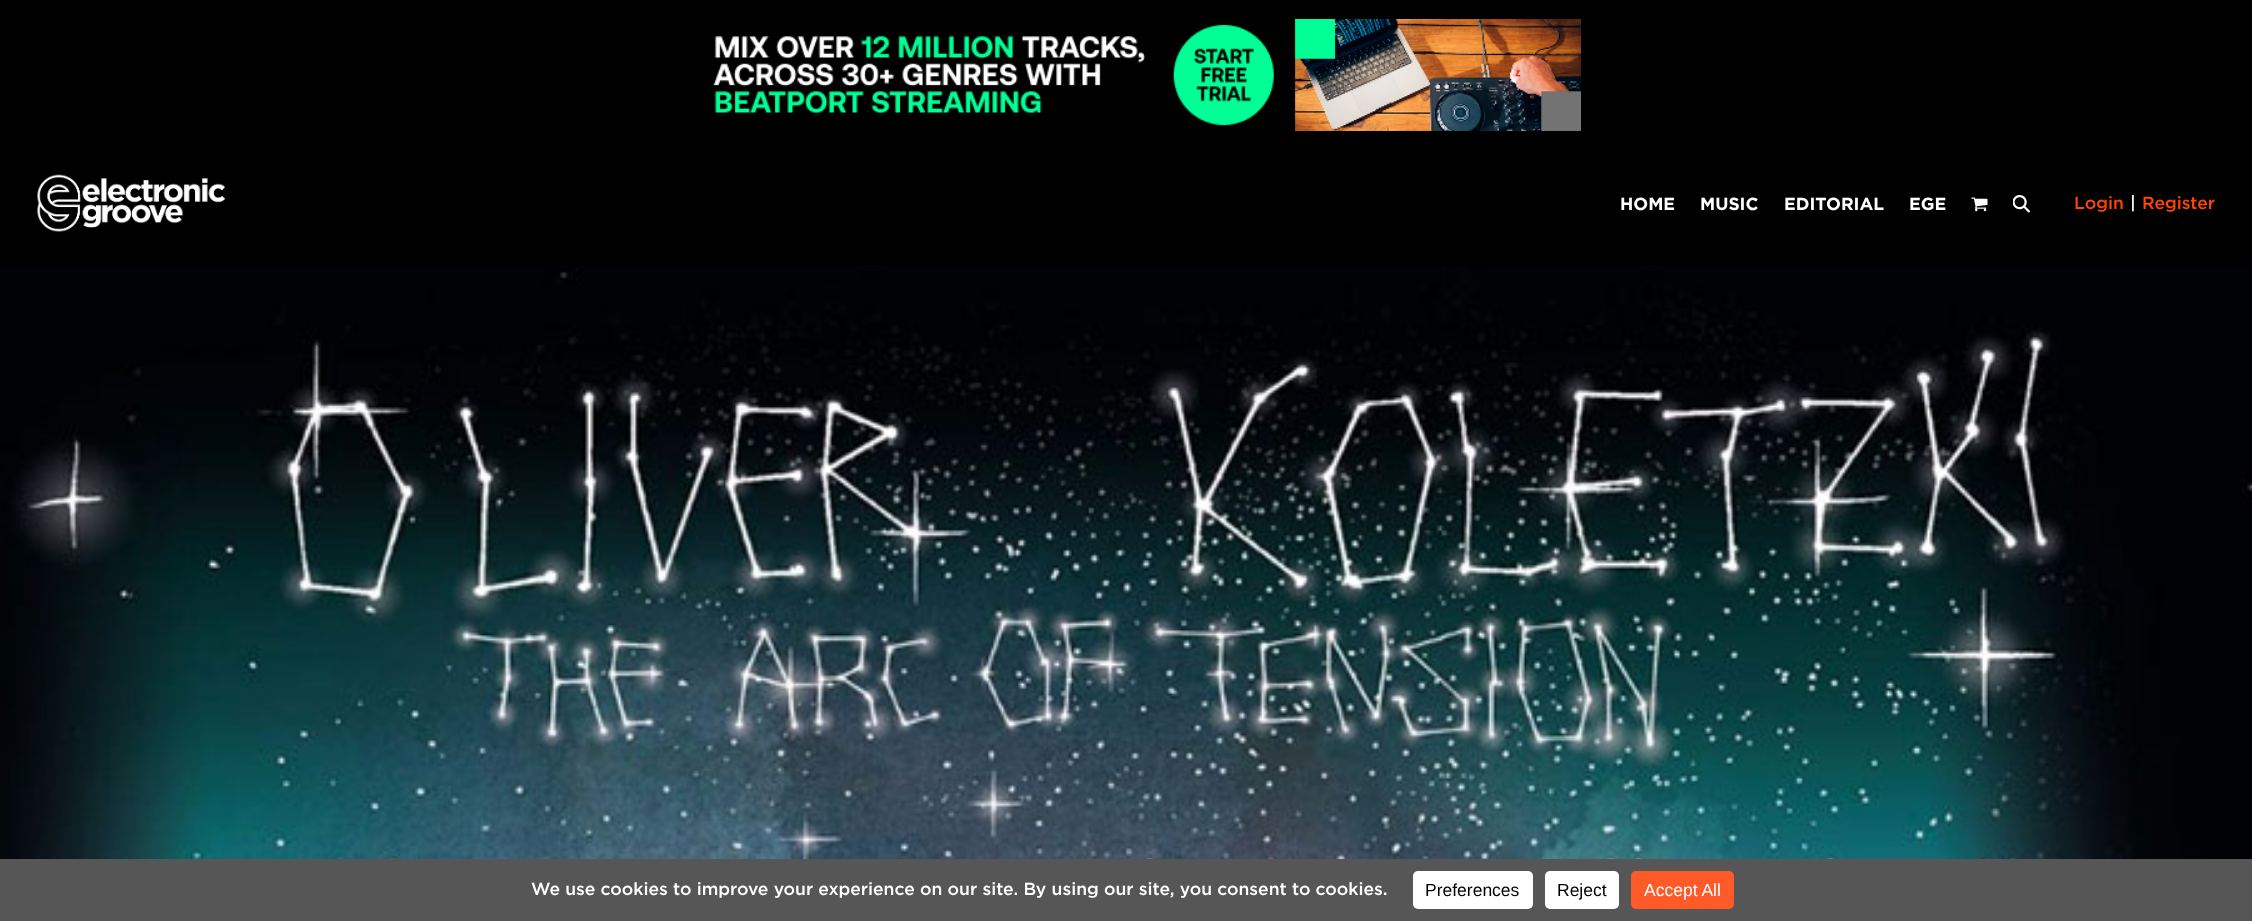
<svg xmlns="http://www.w3.org/2000/svg" width="2252" height="921" viewBox="0 0 2252 921">
  <rect width="100%" height="100%" fill="rgb(0,0,0)"/>
  <image x="713" y="19" width="868" height="112" href="pic1.png"/>
  <image x="37" y="174" width="188" height="58" href="pic2.png"/>
  <g font-family="Gotham" font-size="17.5" font-weight="bold" fill="rgb(255,255,255)">
    <text x="1620" y="210">HOME</text>
    <text x="1700" y="210">MUSIC</text>
    <text x="1784" y="210">EDITORIAL</text>
    <text x="1909" y="210">EGE</text>
  </g>
  <image x="1971" y="197" width="17" height="15" href="pic3.png"/>
  <image x="2013" y="195" width="17" height="18" href="pic4.png"/>
  <text x="2074" y="209" font-family="Gotham" font-size="17.5" font-weight="500" fill="rgb(255,69,0)">Login</text>
  <text x="2130" y="209" font-family="Gotham" font-size="17.5" font-weight="500" fill="rgb(255,255,255)">|</text>
  <text x="2142" y="209" font-family="Gotham" font-size="17.5" font-weight="500" fill="rgb(255,69,0)">Register</text>
  <image x="0" y="265" width="2252" height="594" href="pic5.png"/>
  <rect x="0" y="859" width="2252" height="62" fill="rgb(86,86,86)"/>
  <text x="531" y="895" font-family="Gotham" font-size="17.5" font-weight="500" fill="rgb(255,255,255)">We use cookies to improve your experience on our site. By using our site, you consent to cookies.</text>
  <rect x="1413" y="871" width="120" height="38" rx="5" fill="rgb(255,255,255)"/>
  <text x="1425" y="896" font-family="Liberation Sans" font-size="17.5" fill="rgb(0,0,0)">Preferences</text>
  <rect x="1545" y="871" width="74" height="38" rx="5" fill="rgb(255,255,255)"/>
  <text x="1557" y="896" font-family="Liberation Sans" font-size="17.5" fill="rgb(0,0,0)">Reject</text>
  <rect x="1631" y="871" width="103" height="38" rx="5" fill="rgb(255,90,40)"/>
  <text x="1644" y="896" font-family="Liberation Sans" font-size="17.5" fill="rgb(255,255,255)">Accept All</text>
</svg>
